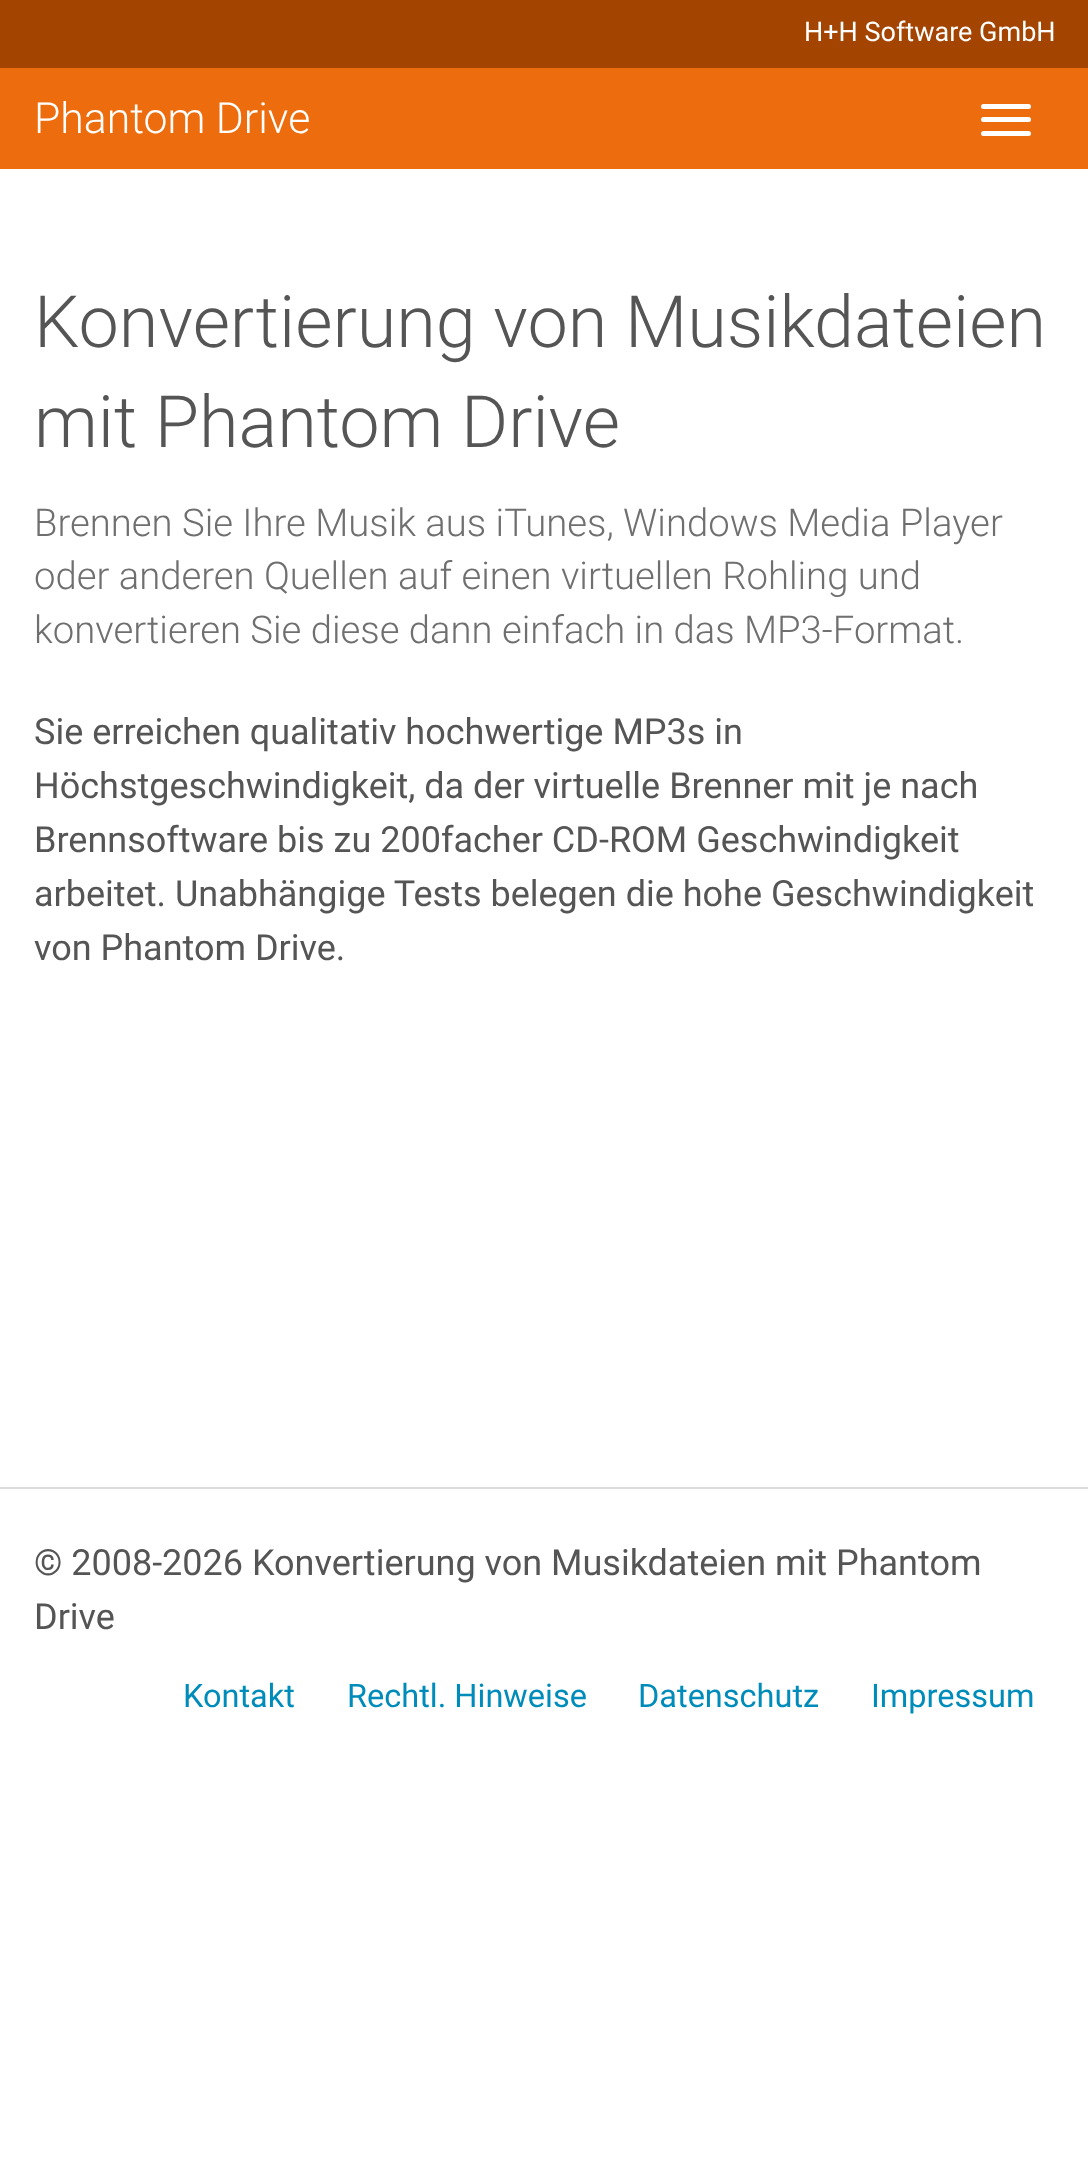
<svg xmlns="http://www.w3.org/2000/svg" width="1088" height="2177" viewBox="0 0 1088 2177">
  <rect width="100%" height="100%" fill="rgb(255,255,255)"/>
  <rect x="0" y="0" width="1088" height="68" fill="rgb(163,68,0)"/>
  <text x="804" y="41" font-family="Roboto" font-size="27" fill="rgb(255,255,255)">H+H Software GmbH</text>
  <rect x="0" y="68" width="1088" height="101" fill="rgb(237,108,13)"/>
  <text x="34" y="133" font-family="Roboto" font-size="42.75" font-weight="300" fill="rgb(255,255,255)">Phantom Drive</text>
  <rect x="981" y="104" width="50" height="5" rx="2.5" fill="rgb(255,255,255)"/>
  <rect x="981" y="117" width="50" height="5" rx="2.5" fill="rgb(255,255,255)"/>
  <rect x="981" y="131" width="50" height="5" rx="2.5" fill="rgb(255,255,255)"/>
  <g font-family="Roboto" font-size="72" font-weight="300" fill="rgb(85,85,85)">
    <text>
      <tspan x="34" y="347">Konvertierung von Musikdateien</tspan>
      <tspan x="34" y="447">mit Phantom Drive</tspan>
    </text>
  </g>
  <g font-family="Roboto" font-size="38.25" font-weight="300" fill="rgb(111,111,111)">
    <text>
      <tspan x="34" y="536">Brennen Sie Ihre Musik aus iTunes, Windows Media Player</tspan>
      <tspan x="34" y="589">oder anderen Quellen auf einen virtuellen Rohling und</tspan>
      <tspan x="34" y="643">konvertieren Sie diese dann einfach in das MP3-Format.</tspan>
    </text>
  </g>
  <g font-family="Roboto" font-size="36" fill="rgb(85,85,85)">
    <text>
      <tspan x="34" y="744">Sie erreichen qualitativ hochwertige MP3s in</tspan>
      <tspan x="34" y="798">Höchstgeschwindigkeit, da der virtuelle Brenner mit je nach</tspan>
      <tspan x="34" y="852">Brennsoftware bis zu 200facher CD-ROM Geschwindigkeit</tspan>
      <tspan x="34" y="906">arbeitet. Unabhängige Tests belegen die hohe Geschwindigkeit</tspan>
      <tspan x="34" y="960">von Phantom Drive.</tspan>
    </text>
  </g>
  <rect x="0" y="1487" width="1088" height="2" fill="rgb(221,221,221)"/>
  <g font-family="Roboto" font-size="36" fill="rgb(85,85,85)">
    <text>
      <tspan x="34" y="1575">© 2008-2026 Konvertierung von Musikdateien mit Phantom</tspan>
      <tspan x="34" y="1629">Drive</tspan>
    </text>
  </g>
  <g font-family="Roboto" font-size="32.5" fill="rgb(0,140,186)">
    <text x="183" y="1707">Kontakt</text>
    <text x="347" y="1707">Rechtl. Hinweise</text>
    <text x="638" y="1707">Datenschutz</text>
    <text x="871" y="1707">Impressum</text>
  </g>
</svg>
